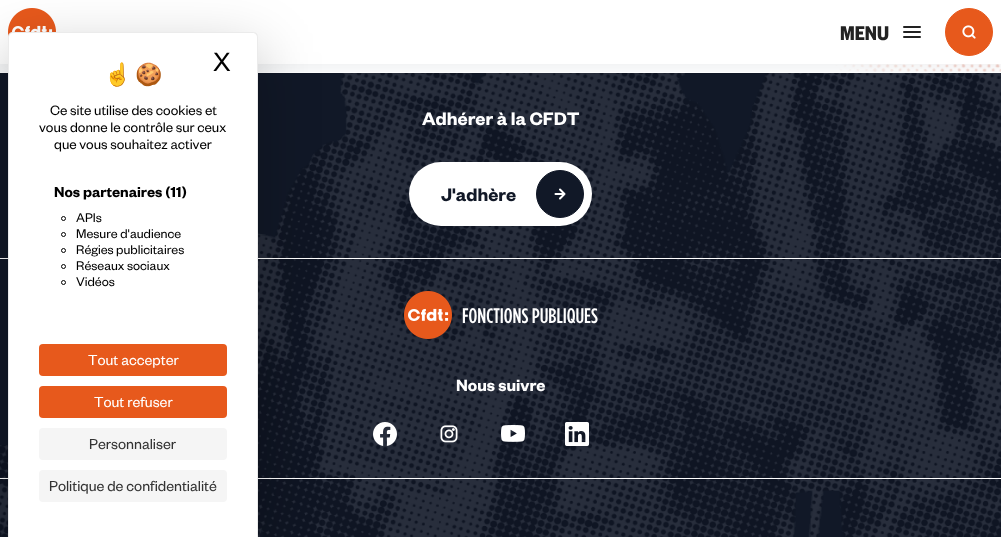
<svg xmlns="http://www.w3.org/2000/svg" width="1001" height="537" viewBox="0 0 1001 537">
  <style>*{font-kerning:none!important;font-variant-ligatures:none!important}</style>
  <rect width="100%" height="100%" fill="rgb(249,250,251)"/>
  <image x="834" y="64" width="167" height="8" href="pic3.png"/>
  <rect x="0" y="73" width="1001" height="464" fill="rgb(17,24,39)"/>
  <image x="0" y="73" width="1001" height="464" href="pic4.png"/>
  <rect x="0" y="72" width="1001" height="1" fill="rgb(255,255,255)"/>
  <rect x="0" y="0" width="1001" height="64" fill="rgba(0,0,0,0.05)" filter="blur(6px)"/>
  <rect x="0" y="0" width="1001" height="64" fill="rgb(255,255,255)"/>
  <image x="8" y="8" width="48" height="29" href="pic1.png"/>
  <text x="840" y="40" font-family="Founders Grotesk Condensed" font-size="22" font-weight="bold" fill="rgb(34,34,34)">MENU</text>
  <rect x="903" y="31" width="18" height="2" rx="1" fill="rgb(34,34,34)"/>
  <rect x="903" y="26" width="18" height="2" rx="1" fill="rgb(34,34,34)"/>
  <rect x="903" y="36" width="18" height="2" rx="1" fill="rgb(34,34,34)"/>
  <circle cx="969" cy="32" r="23.5" fill="rgb(231,89,28)" stroke="rgb(231,89,28)"/>
  <image x="962" y="25" width="14" height="14" href="pic2.png"/>
  <rect x="0" y="478" width="1001" height="1" fill="rgb(255,255,255)"/>
  <rect x="0" y="258" width="1001" height="1" fill="rgb(255,255,255)"/>
  <rect x="8" y="52" width="250" height="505" rx="5" fill="rgba(0,0,0,0.25)" filter="blur(30px)"/>
  <path d="M13 32H253C256 32 258 34 258 37V537H8V37C8 34 10 32 13 32Z" fill="rgb(255,255,255)"/>
  <path d="M13 32H253C256 32 258 34 258 37V537H8V37C8 34 10 32 13 32ZM13 33H253C255 33 257 35 257 37V537H9V37C9 35 11 33 13 33Z" fill="rgba(0,0,0,0.08)" fill-rule="evenodd"/>
  <g font-family="Noto Color Emoji" font-size="22" fill="rgb(0,0,0)">
    <text x="104" y="82">☝️</text>
    <text x="135" y="82">🍪</text>
  </g>
  <text x="213" y="71" font-family="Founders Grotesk" font-size="29" fill="rgb(0,0,0)">X</text>
  <g font-family="Founders Grotesk" font-size="15" fill="rgb(0,0,0)">
    <text x="50" y="115">Ce site utilise des cookies et</text>
    <text x="39" y="132">vous donne le contrôle sur ceux</text>
    <text x="54" y="149">que vous souhaitez activer</text>
  </g>
  <text x="54" y="197" font-family="Founders Grotesk" font-size="16" font-weight="600" fill="rgb(0,0,0)">Nos partenaires (11)</text>
  <circle cx="63.5" cy="218.5" r="2" fill="none" stroke="rgb(0,0,0)"/>
  <text x="76" y="222" font-family="Founders Grotesk" font-size="14" fill="rgb(0,0,0)">APIs</text>
  <circle cx="63.5" cy="234.5" r="2" fill="none" stroke="rgb(0,0,0)"/>
  <text x="76" y="238" font-family="Founders Grotesk" font-size="14" fill="rgb(0,0,0)">Mesure d'audience</text>
  <circle cx="63.5" cy="250.5" r="2" fill="none" stroke="rgb(0,0,0)"/>
  <text x="76" y="254" font-family="Founders Grotesk" font-size="14" fill="rgb(0,0,0)">Régies publicitaires</text>
  <circle cx="63.5" cy="266.5" r="2" fill="none" stroke="rgb(0,0,0)"/>
  <text x="76" y="270" font-family="Founders Grotesk" font-size="14" fill="rgb(0,0,0)">Réseaux sociaux</text>
  <circle cx="63.5" cy="282.5" r="2" fill="none" stroke="rgb(0,0,0)"/>
  <text x="76" y="286" font-family="Founders Grotesk" font-size="14" fill="rgb(0,0,0)">Vidéos</text>
  <rect x="39" y="344" width="188" height="32" rx="4" fill="rgb(231,89,28)"/>
  <text x="88" y="365" font-family="Founders Grotesk" font-size="16" fill="rgb(255,255,255)">Tout accepter</text>
  <rect x="39" y="386" width="188" height="32" rx="4" fill="rgb(231,89,28)"/>
  <text x="94" y="407" font-family="Founders Grotesk" font-size="16" fill="rgb(255,255,255)">Tout refuser</text>
  <rect x="39" y="428" width="188" height="32" rx="4" fill="rgb(245,245,245)"/>
  <text x="89" y="449" font-family="Founders Grotesk" font-size="16" fill="rgb(51,51,51)">Personnaliser</text>
  <rect x="39" y="470" width="188" height="32" rx="4" fill="rgb(245,245,245)"/>
  <text x="49" y="491" font-family="Founders Grotesk" font-size="16" fill="rgb(51,51,51)">Politique de confidentialité</text>
  <text x="422" y="125" font-family="Founders Grotesk" font-size="20" font-weight="600" fill="rgb(255,255,255)">Adhérer à la CFDT</text>
  <rect x="409" y="162" width="183" height="64" rx="32" fill="rgb(255,255,255)"/>
  <text x="441" y="201" font-family="Founders Grotesk" font-size="20" font-weight="600" fill="rgb(17,24,39)">J'adhère</text>
  <circle cx="560" cy="194" r="23.5" fill="rgb(17,24,39)" stroke="rgb(17,24,39)"/>
  <path d="M555.5 194H564.5M564.5 194L560 189.5M564.5 194L560 198.5" fill="none" stroke="rgb(255,255,255)" stroke-width="2" stroke-linecap="round" stroke-linejoin="round"/>
  <image x="404" y="291" width="48" height="48" href="pic5.png"/>
  <text x="462" y="323" font-family="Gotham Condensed" font-size="21" font-weight="500" fill="rgb(255,255,255)">FONCTIONS PUBLIQUES</text>
  <text x="456" y="391" font-family="Founders Grotesk" font-size="18" font-weight="600" fill="rgb(255,255,255)">Nous suivre</text>
  <image x="373" y="422" width="24" height="24" href="pic6.png"/>
  <image x="440" y="425" width="18" height="18" href="pic7.png"/>
  <image x="501" y="425" width="24" height="17" href="pic8.png"/>
  <image x="565" y="422" width="24" height="24" href="pic9.png"/>
</svg>
